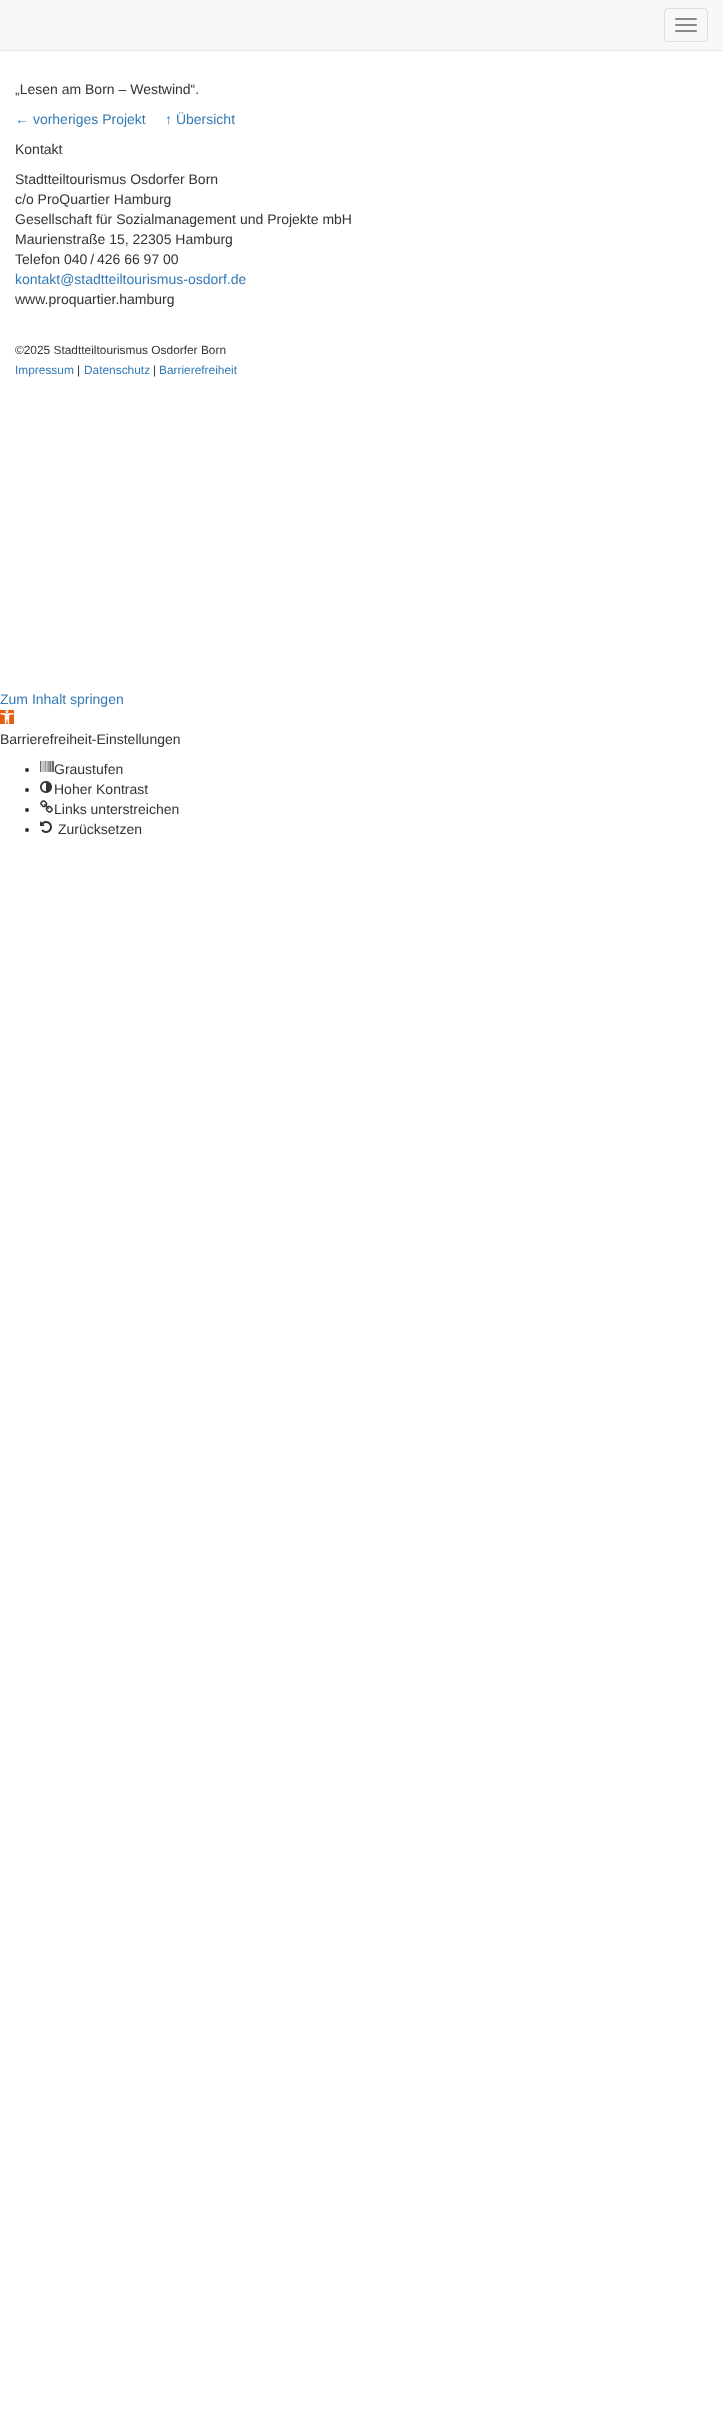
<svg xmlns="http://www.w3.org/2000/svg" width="723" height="2428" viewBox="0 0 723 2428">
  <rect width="100%" height="100%" fill="rgb(255,255,255)"/>
  <rect x="0" y="0" width="723" height="50" fill="rgb(248,248,248)"/>
  <rect x="0" y="50" width="723" height="1" fill="rgb(231,231,231)"/>
  <rect x="664.5" y="8.5" width="43" height="33" rx="3.5" fill="none" stroke="rgb(221,221,221)"/>
  <rect x="675" y="18" width="22" height="2" rx="1" fill="rgb(136,136,136)"/>
  <rect x="675" y="24" width="22" height="2" rx="1" fill="rgb(136,136,136)"/>
  <rect x="675" y="30" width="22" height="2" rx="1" fill="rgb(136,136,136)"/>
  <text x="15" y="94" font-family="Liberation Sans" font-size="14" fill="rgb(51,51,51)">„Lesen am Born – Westwind“.</text>
  <g font-family="Liberation Sans" font-size="14" fill="rgb(51,122,183)">
    <text x="15" y="124">← vorheriges Projekt</text>
    <text x="165" y="124">↑ Übersicht</text>
  </g>
  <g font-family="Liberation Sans" font-size="14" fill="rgb(51,51,51)">
    <text x="15" y="154">Kontakt</text>
    <text>
      <tspan x="15" y="184">Stadtteiltourismus Osdorfer Born</tspan>
      <tspan x="15" y="204">c/o ProQuartier Hamburg</tspan>
      <tspan x="15" y="224">Gesellschaft für Sozialmanagement und Projekte mbH</tspan>
      <tspan x="15" y="244">Maurienstraße 15, 22305 Hamburg</tspan>
      <tspan x="15" y="264">Telefon 040 / 426 66 97 00</tspan>
    </text>
  </g>
  <text x="15" y="284" font-family="Liberation Sans" font-size="14" fill="rgb(51,122,183)">kontakt@stadtteiltourismus-osdorf.de</text>
  <text x="15" y="304" font-family="Liberation Sans" font-size="14" fill="rgb(51,51,51)">www.proquartier.hamburg</text>
  <text x="15" y="354" font-family="Liberation Sans" font-size="11.9" fill="rgb(51,51,51)">©2025 Stadtteiltourismus Osdorfer Born</text>
  <text x="15" y="374" font-family="Liberation Sans" font-size="11.9" fill="rgb(51,122,183)">Impressum</text>
  <text x="77" y="374" font-family="Liberation Sans" font-size="11.9" fill="rgb(51,51,51)">|</text>
  <text x="84" y="374" font-family="Liberation Sans" font-size="11.9" fill="rgb(51,122,183)">Datenschutz</text>
  <text x="153" y="374" font-family="Liberation Sans" font-size="11.9" fill="rgb(51,51,51)">|</text>
  <text x="159" y="374" font-family="Liberation Sans" font-size="11.9" fill="rgb(51,122,183)">Barrierefreiheit</text>
  <text x="0" y="704" font-family="Liberation Sans" font-size="14" fill="rgb(51,122,183)">Zum Inhalt springen</text>
  <rect x="0" y="710" width="14" height="14" fill="rgb(233,93,15)"/>
  <image x="0" y="710" width="14" height="14" href="pic1.png"/>
  <text x="0" y="744" font-family="Liberation Sans" font-size="14" fill="rgb(51,51,51)">Barrierefreiheit-Einstellungen</text>
  <circle cx="27" cy="770" r="2" fill="rgb(51,51,51)"/>
  <image x="40" y="761" width="14" height="11" href="pic2.png"/>
  <text x="54" y="774" font-family="Liberation Sans" font-size="14" fill="rgb(51,51,51)">Graustufen</text>
  <circle cx="27" cy="790" r="2" fill="rgb(51,51,51)"/>
  <image x="40" y="781" width="12" height="12" href="pic3.png"/>
  <text x="54" y="794" font-family="Liberation Sans" font-size="14" fill="rgb(51,51,51)">Hoher Kontrast</text>
  <circle cx="27" cy="810" r="2" fill="rgb(51,51,51)"/>
  <image x="40" y="800" width="13" height="13" href="pic4.png"/>
  <text x="54" y="814" font-family="Liberation Sans" font-size="14" fill="rgb(51,51,51)">Links unterstreichen</text>
  <circle cx="27" cy="830" r="2" fill="rgb(51,51,51)"/>
  <image x="40" y="821" width="12" height="12" href="pic5.png"/>
  <text x="58" y="834" font-family="Liberation Sans" font-size="14" fill="rgb(51,51,51)">Zurücksetzen</text>
</svg>
